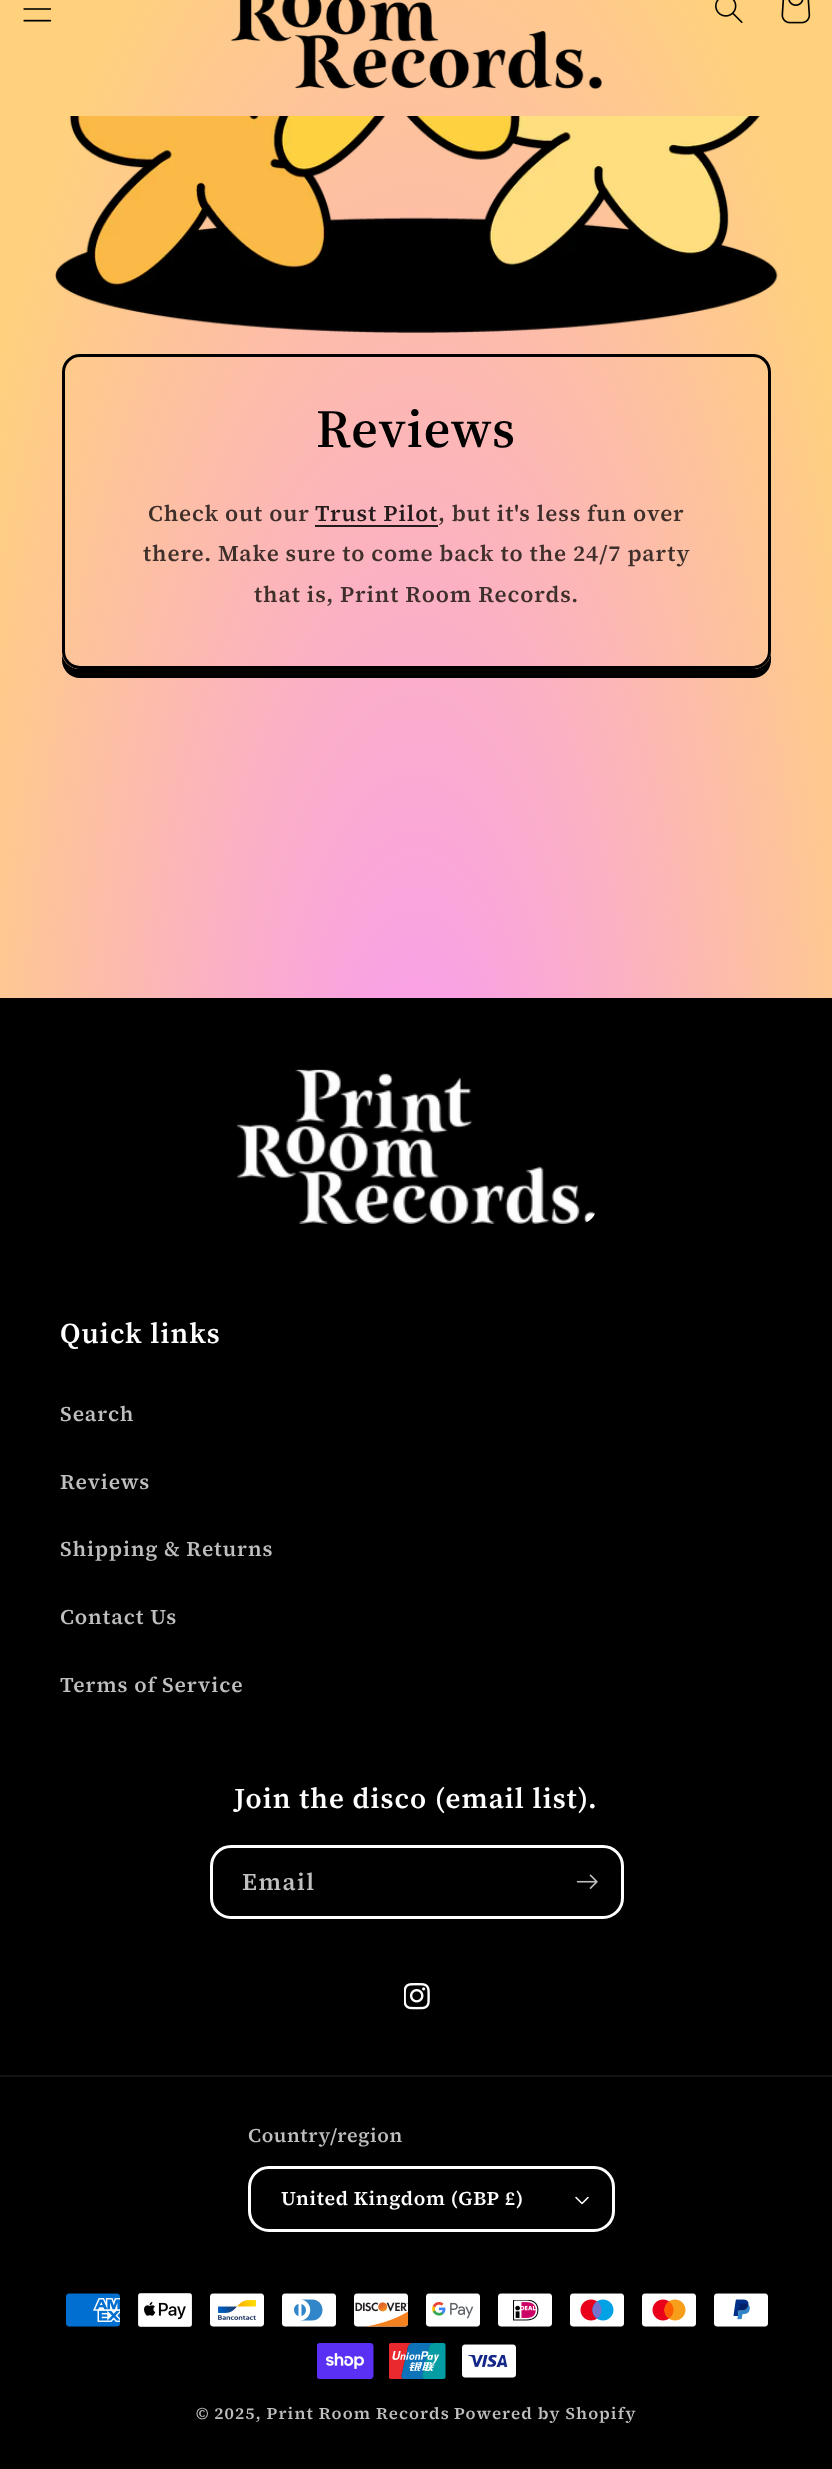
<svg xmlns="http://www.w3.org/2000/svg" width="832" height="2469" viewBox="0 0 832 2469">
  <defs>
    <radialGradient id="g1" gradientUnits="userSpaceOnUse" cx="0" cy="0" r="1" gradientTransform="matrix(589 0 0 1746 416 1235)"><stop offset="0.04" stop-color="rgb(249,155,242)"/><stop offset="0.87" stop-color="rgb(255,209,125)"/></radialGradient>
    <radialGradient id="g2" gradientUnits="userSpaceOnUse" cx="0" cy="0" r="1" gradientTransform="matrix(589 0 0 1746 416 1235)"><stop offset="0.04" stop-color="rgb(37,23,36)"/><stop offset="0.87" stop-color="rgb(38,31,19)"/></radialGradient>
  </defs>
  <rect width="100%" height="100%" fill="rgb(255,255,255)"/>
  <rect x="0" y="116" width="832" height="882" fill="url(#g1)"/>
  <path d="M23 0H810V381C810 391 802 399 792 399H41C31 399 23 391 23 381Z" fill="url(#g1)"/>
  <rect x="0" y="0" width="832" height="116" fill="url(#g1)"/>
  <image x="23" y="8" width="29" height="14" href="pic1.png"/>
  <image x="231" y="0" width="371" height="89" href="pic2.png"/>
  <image x="715" y="0" width="28" height="23" href="pic3.png"/>
  <image x="781" y="0" width="30" height="24" href="pic4.png"/>
  <image x="55" y="116" width="723" height="217" href="pic5.png"/>
  <path d="M62 655V660C62 670 70 678 80 678H753C763 678 771 670 771 660V651C771 661 763 669 753 669H80C71 669 64 663 62 655Z" fill="rgb(0,0,0)"/>
  <rect x="62" y="354" width="709" height="315" rx="18" fill="url(#g1)"/>
  <rect x="315" y="525" width="123" height="2" fill="url(#g2)"/>
  <rect x="63.5" y="355.5" width="706" height="312" rx="16.5" fill="none" stroke="rgb(0,0,0)" stroke-width="3"/>
  <text x="316" y="447" font-family="'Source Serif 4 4'" font-size="54" font-weight="600" letter-spacing="1.1" fill="rgb(0,0,0)">Reviews</text>
  <text x="148" y="521" font-family="'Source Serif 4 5'" font-size="22.5" font-weight="600" letter-spacing="0.9" fill="rgb(63,47,43)">Check out our</text>
  <text x="315" y="521" font-family="'Source Serif 4 5'" font-size="22.5" font-weight="600" letter-spacing="0.9" fill="rgb(38,27,28)">Trust Pilot</text>
  <g font-family="'Source Serif 4 5'" font-size="22.5" font-weight="600" letter-spacing="0.9" fill="rgb(63,47,43)">
    <text x="438" y="521">, but it's less fun over</text>
    <text x="143" y="561">there. Make sure to come back to the 24/7 party</text>
    <text x="254" y="602">that is, Print Room Records.</text>
  </g>
  <rect x="0" y="998" width="832" height="1471" fill="rgb(0,0,0)"/>
  <image x="237" y="1069" width="358" height="155" href="pic6.png"/>
  <text x="60" y="1343" font-family="'Source Serif 4'" font-size="28.75" font-weight="600" letter-spacing="1.1" fill="rgb(255,255,255)">Quick links</text>
  <g font-family="'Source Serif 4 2'" font-size="21" font-weight="600" letter-spacing="0.9" fill="rgb(191,191,191)">
    <text x="60" y="1421">Search</text>
    <text x="60" y="1489">Reviews</text>
    <text x="60" y="1556">Shipping &amp; Returns</text>
    <text x="60" y="1624">Contact Us</text>
    <text x="60" y="1692">Terms of Service</text>
  </g>
  <text x="234" y="1808" font-family="'Source Serif 4'" font-size="28.75" font-weight="600" letter-spacing="1.1" fill="rgb(255,255,255)">Join the disco (email list).</text>
  <rect x="211.5" y="1846.5" width="411" height="71" rx="19.5" fill="none" stroke="rgb(255,255,255)" stroke-width="3"/>
  <text x="242" y="1890" font-family="'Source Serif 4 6'" font-size="24" font-weight="600" letter-spacing="1.5" fill="rgb(191,191,191)">Email</text>
  <image x="576" y="1874" width="22" height="15" href="pic7.png"/>
  <image x="404" y="1983" width="26" height="27" href="pic8.png"/>
  <rect x="0" y="2075" width="832" height="2" fill="rgb(20,20,20)"/>
  <text x="248" y="2142" font-family="'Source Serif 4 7'" font-size="19.5" font-weight="600" letter-spacing="0.6" fill="rgb(191,191,191)">Country/region</text>
  <image x="575" y="2196" width="14" height="9" href="pic9.png"/>
  <rect x="249.5" y="2167.5" width="364" height="63" rx="19.5" fill="none" stroke="rgb(255,255,255)" stroke-width="3"/>
  <text x="281" y="2205" font-family="'Source Serif 4 7'" font-size="19.5" font-weight="600" letter-spacing="0.6" fill="rgb(255,255,255)">United Kingdom (GBP £)</text>
  <image x="66" y="2293" width="54" height="34" href="pic10.png"/>
  <image x="138" y="2293" width="54" height="34" href="pic11.png"/>
  <image x="210" y="2293" width="54" height="34" href="pic12.png"/>
  <image x="282" y="2293" width="54" height="34" href="pic13.png"/>
  <image x="354" y="2293" width="55" height="34" href="pic14.png"/>
  <image x="426" y="2293" width="54" height="34" href="pic15.png"/>
  <image x="498" y="2293" width="54" height="34" href="pic16.png"/>
  <image x="570" y="2293" width="54" height="34" href="pic17.png"/>
  <image x="642" y="2293" width="54" height="34" href="pic18.png"/>
  <image x="714" y="2293" width="54" height="34" href="pic19.png"/>
  <image x="317" y="2343" width="57" height="36" href="pic20.png"/>
  <image x="389" y="2343" width="57" height="36" href="pic21.png"/>
  <image x="462" y="2344" width="54" height="34" href="pic22.png"/>
  <g font-family="'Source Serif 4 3'" font-size="16.5" font-weight="600" letter-spacing="1.05" fill="rgb(191,191,191)">
    <text x="196" y="2419">© 2025, Print Room Records</text>
    <text x="454" y="2419">Powered by Shopify</text>
  </g>
</svg>
